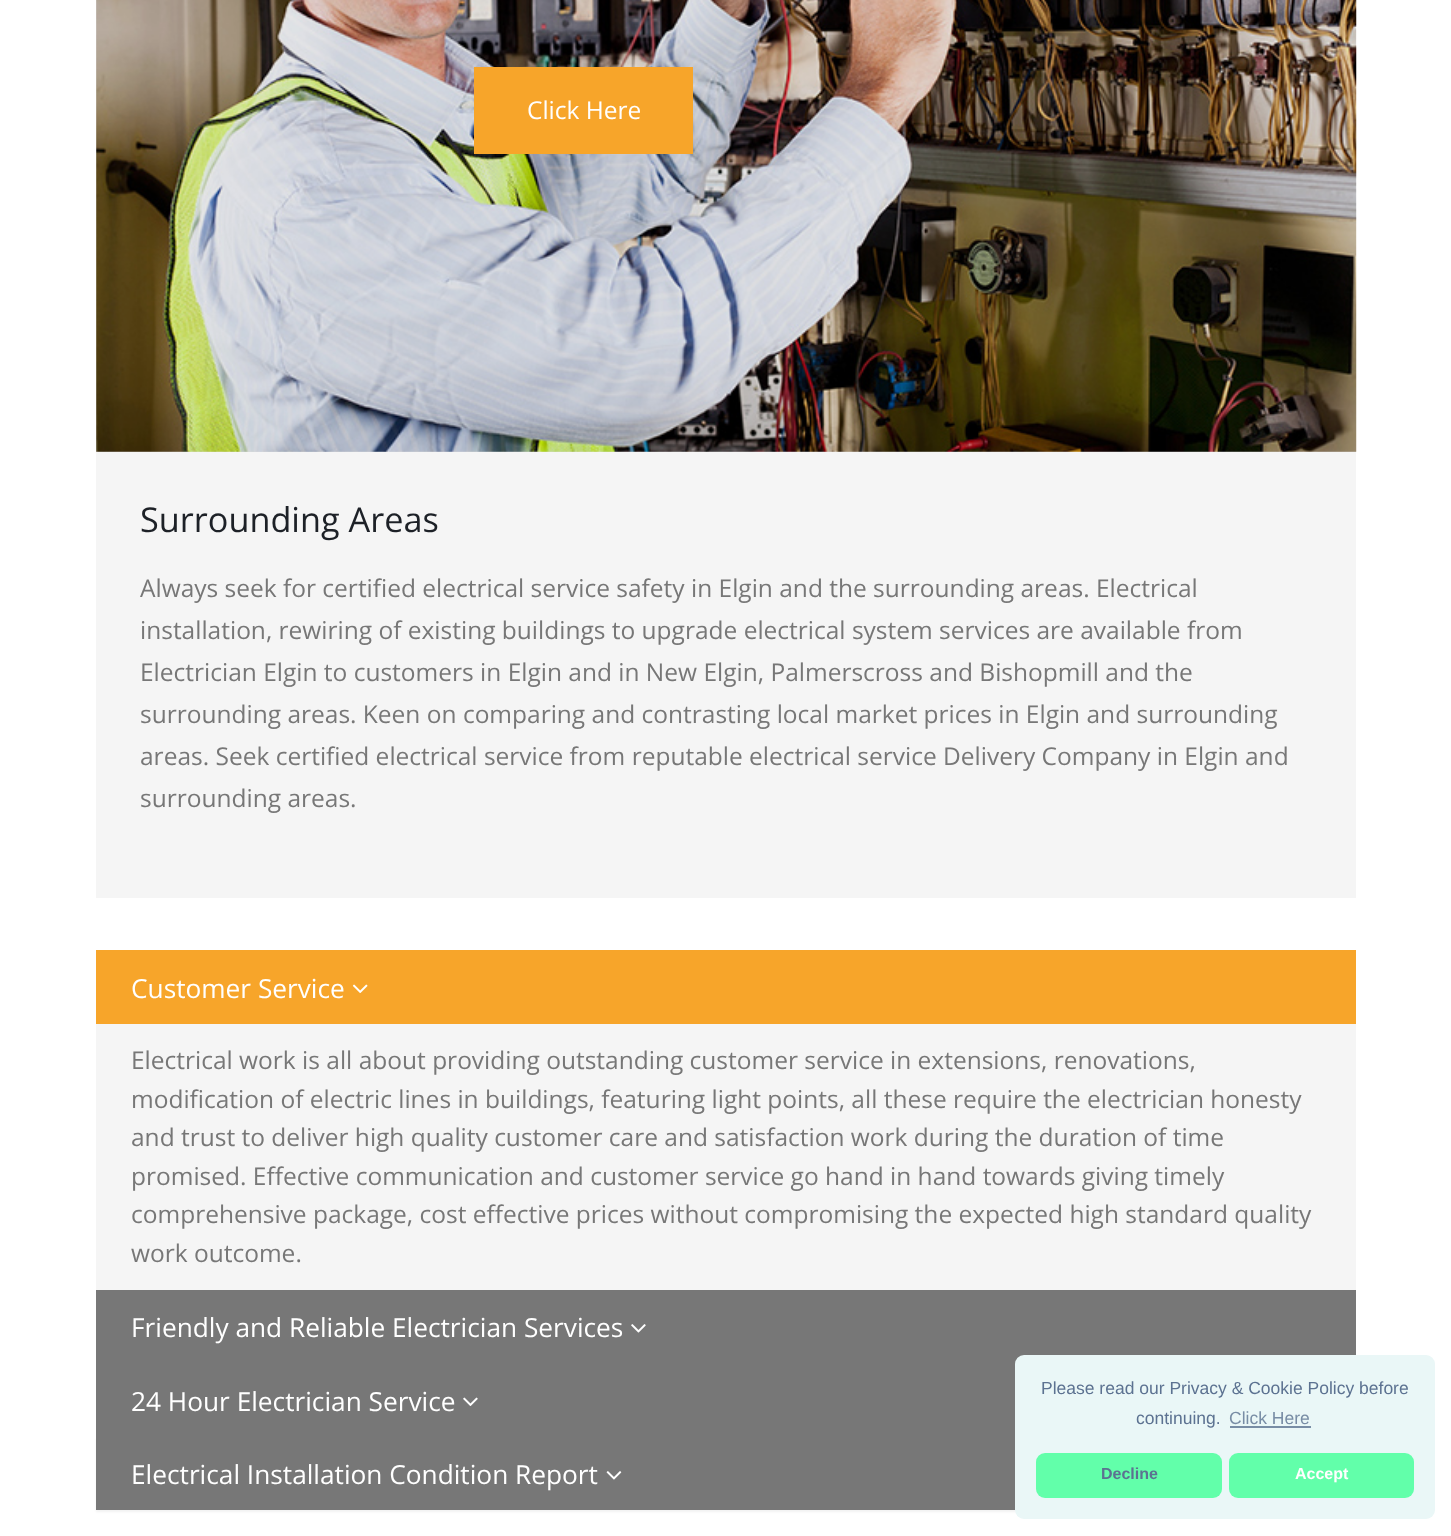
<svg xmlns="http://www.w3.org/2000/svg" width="1451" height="1536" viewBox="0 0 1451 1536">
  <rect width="100%" height="100%" fill="rgb(255,255,255)"/>
  <rect x="96" y="452" width="1260" height="446" fill="rgb(245,245,245)"/>
  <rect x="96" y="0" width="1260" height="452" fill="rgb(221,221,221)"/>
  <image x="96" y="0" width="1261" height="452" href="pic1.png"/>
  <rect x="474" y="67" width="219" height="87" fill="rgb(247,165,42)"/>
  <text x="527" y="119" font-family="Open Sans" font-size="24.5" fill="rgb(255,255,255)">Click Here</text>
  <text x="140" y="532" font-family="Open Sans" font-size="34.25" fill="rgb(29,33,39)">Surrounding Areas</text>
  <g font-family="Open Sans" font-size="24.5" fill="rgb(119,119,119)">
    <text>
      <tspan x="140" y="597">Always seek for certified electrical service safety in Elgin and the surrounding areas. Electrical</tspan>
      <tspan x="140" y="639">installation, rewiring of existing buildings to upgrade electrical system services are available from</tspan>
      <tspan x="140" y="681">Electrician Elgin to customers in Elgin and in New Elgin, Palmerscross and Bishopmill and the</tspan>
      <tspan x="140" y="723">surrounding areas. Keen on comparing and contrasting local market prices in Elgin and surrounding</tspan>
      <tspan x="140" y="765">areas. Seek certified electrical service from reputable electrical service Delivery Company in Elgin and</tspan>
      <tspan x="140" y="807">surrounding areas.</tspan>
    </text>
  </g>
  <rect x="96" y="950" width="1260" height="74" fill="rgb(247,165,42)"/>
  <text x="131" y="998" font-family="Open Sans" font-size="26.25" fill="rgb(255,255,255)">Customer Service</text>
  <image x="352" y="984" width="16" height="9" href="pic2.png"/>
  <rect x="96" y="1024" width="1260" height="266" fill="rgb(245,245,245)"/>
  <g font-family="Open Sans" font-size="24.5" fill="rgb(119,119,119)">
    <text>
      <tspan x="131" y="1069">Electrical work is all about providing outstanding customer service in extensions, renovations,</tspan>
      <tspan x="131" y="1108">modification of electric lines in buildings, featuring light points, all these require the electrician honesty</tspan>
      <tspan x="131" y="1146">and trust to deliver high quality customer care and satisfaction work during the duration of time</tspan>
      <tspan x="131" y="1185">promised. Effective communication and customer service go hand in hand towards giving timely</tspan>
      <tspan x="131" y="1223">comprehensive package, cost effective prices without compromising the expected high standard quality</tspan>
      <tspan x="131" y="1262">work outcome.</tspan>
    </text>
  </g>
  <rect x="96" y="1290" width="1260" height="73" fill="rgb(119,119,119)"/>
  <text x="131" y="1337" font-family="Open Sans" font-size="26.25" fill="rgb(255,255,255)">Friendly and Reliable Electrician Services</text>
  <image x="631" y="1324" width="15" height="9" href="pic3.png"/>
  <rect x="96" y="1363" width="920" height="74" fill="rgb(119,119,119)"/>
  <text x="131" y="1411" font-family="Open Sans" font-size="26.25" fill="rgb(255,255,255)">24 Hour Electrician Service</text>
  <image x="463" y="1397" width="15" height="9" href="pic4.png"/>
  <rect x="96" y="1439" width="1260" height="73" fill="rgba(0,0,0,0.05)" filter="blur(1px)"/>
  <rect x="96" y="1437" width="919" height="73" fill="rgb(119,119,119)"/>
  <text x="131" y="1484" font-family="Open Sans" font-size="26.25" fill="rgb(255,255,255)">Electrical Installation Condition Report</text>
  <image x="606" y="1471" width="16" height="9" href="pic5.png"/>
  <rect x="1015" y="1355" width="420" height="164" rx="9" fill="rgb(234,247,247)"/>
  <g font-family="Liberation Sans" font-size="17.5" fill="rgb(92,114,145)">
    <text x="1041" y="1394">Please read our Privacy &amp; Cookie Policy before</text>
    <text x="1136" y="1424">continuing.</text>
  </g>
  <text x="1229" y="1424" font-family="Liberation Sans" font-size="17.5" fill="rgb(120,141,165)">Click Here</text>
  <rect x="1230" y="1426" width="81" height="2" fill="rgb(120,141,165)"/>
  <rect x="1036" y="1453" width="186" height="45" rx="9" fill="rgb(98,255,170)"/>
  <text x="1101" y="1479" font-family="Liberation Sans" font-size="16" font-weight="bold" fill="rgb(92,114,145)">Decline</text>
  <rect x="1229" y="1453" width="185" height="45" rx="9" fill="rgb(98,255,170)"/>
  <text x="1295" y="1479" font-family="Liberation Sans" font-size="16" font-weight="bold" fill="rgb(255,255,255)">Accept</text>
</svg>
